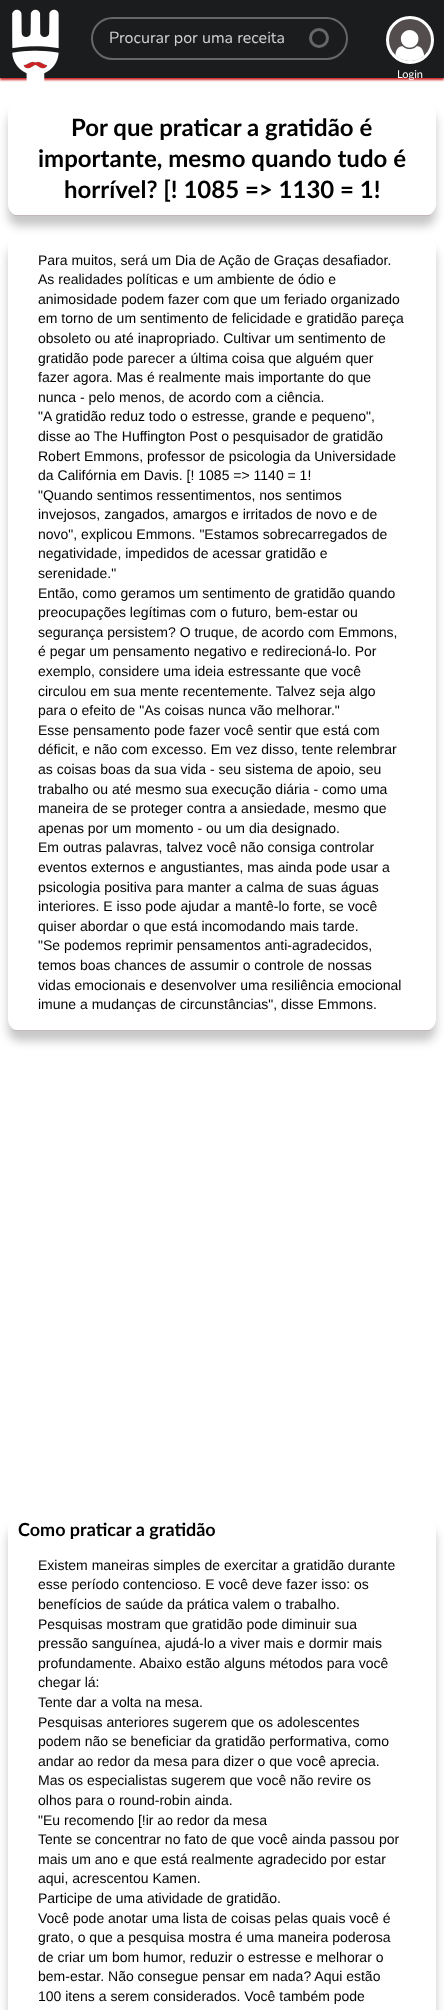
<svg xmlns="http://www.w3.org/2000/svg" width="444" height="2010" viewBox="0 0 444 2010">
  <defs>
    <clipPath id="clip1"><path d="M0 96H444V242H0ZM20 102H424C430.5 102 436 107.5 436 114V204C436 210.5 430.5 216 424 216H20C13.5 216 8 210.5 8 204V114C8 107.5 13.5 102 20 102Z" clip-rule="evenodd"/></clipPath>
    <clipPath id="clip2"><path d="M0 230H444V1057H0ZM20 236H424C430.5 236 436 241.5 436 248V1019C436 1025.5 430.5 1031 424 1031H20C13.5 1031 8 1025.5 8 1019V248C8 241.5 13.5 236 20 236Z" clip-rule="evenodd"/></clipPath>
    <clipPath id="clip3"><path d="M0 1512H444V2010H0ZM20 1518H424C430.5 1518 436 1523.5 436 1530V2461C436 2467.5 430.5 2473 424 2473H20C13.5 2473 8 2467.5 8 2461V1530C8 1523.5 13.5 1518 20 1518Z" clip-rule="evenodd"/></clipPath>
  </defs>
  <rect width="100%" height="100%" fill="rgb(255,255,255)"/>
  <rect x="0" y="2" width="444" height="78" fill="rgb(204,36,36)" filter="blur(1px)"/>
  <rect x="0" y="0" width="444" height="78" fill="rgb(27,28,29)"/>
  <image x="12" y="9" width="47" height="73" href="pic1.png"/>
  <circle cx="319" cy="38" r="8.5" fill="none" stroke="rgb(102,103,104)" stroke-width="3"/>
  <rect x="92" y="18" width="255" height="41" rx="20.5" fill="none" stroke="rgb(102,103,104)" stroke-width="2"/>
  <text x="109" y="43" font-family="Nunito" font-size="16" fill="rgb(209,210,210)">Procurar por uma receita</text>
  <circle cx="410" cy="40" r="22.5" fill="rgb(84,77,77)" stroke="rgb(255,255,255)" stroke-width="3"/>
  <image x="395" y="30" width="29" height="31" href="pic2.png"/>
  <text x="397" y="78" font-family="Lato" font-size="11" fill="rgb(255,255,255)">Login</text>
  <g clip-path="url(#clip1)">
    <rect x="8" y="112" width="428" height="114" rx="12" fill="rgba(0,0,0,0.22)" filter="blur(5px)"/>
  </g>
  <rect x="14" y="215" width="416" height="1" fill="rgb(197,183,183)"/>
  <g font-family="Lato" font-size="24" font-weight="bold" fill="rgb(0,0,0)">
    <text x="71" y="136">Por que praticar a gratidão é</text>
    <text x="38" y="167">importante, mesmo quando tudo é</text>
    <text x="64" y="198">horrível? [! 1085 =&gt; 1130 = 1!</text>
  </g>
  <g clip-path="url(#clip2)">
    <rect x="8" y="246" width="428" height="795" rx="12" fill="rgba(0,0,0,0.22)" filter="blur(5px)"/>
  </g>
  <rect x="14" y="1030" width="416" height="1" fill="rgb(197,183,183)"/>
  <g font-family="Liberation Sans" font-size="14" fill="rgb(0,0,0)">
    <text>
      <tspan x="38" y="265">Para muitos, será um Dia de Ação de Graças desafiador.</tspan>
      <tspan x="38" y="284">As realidades políticas e um ambiente de ódio e</tspan>
      <tspan x="38" y="304">animosidade podem fazer com que um feriado organizado</tspan>
      <tspan x="38" y="323">em torno de um sentimento de felicidade e gratidão pareça</tspan>
      <tspan x="38" y="343">obsoleto ou até inapropriado. Cultivar um sentimento de</tspan>
      <tspan x="38" y="363">gratidão pode parecer a última coisa que alguém quer</tspan>
      <tspan x="38" y="382">fazer agora. Mas é realmente mais importante do que</tspan>
      <tspan x="38" y="402">nunca - pelo menos, de acordo com a ciência.</tspan>
      <tspan x="38" y="421">"A gratidão reduz todo o estresse, grande e pequeno",</tspan>
      <tspan x="38" y="441">disse ao The Huffington Post o pesquisador de gratidão</tspan>
      <tspan x="38" y="461">Robert Emmons, professor de psicologia da Universidade</tspan>
      <tspan x="38" y="480">da Califórnia em Davis. [! 1085 =&gt; 1140 = 1!</tspan>
      <tspan x="38" y="500">"Quando sentimos ressentimentos, nos sentimos</tspan>
      <tspan x="38" y="519">invejosos, zangados, amargos e irritados de novo e de</tspan>
      <tspan x="38" y="539">novo", explicou Emmons. "Estamos sobrecarregados de</tspan>
      <tspan x="38" y="558">negatividade, impedidos de acessar gratidão e</tspan>
      <tspan x="38" y="578">serenidade."</tspan>
      <tspan x="38" y="598">Então, como geramos um sentimento de gratidão quando</tspan>
      <tspan x="38" y="617">preocupações legítimas com o futuro, bem-estar ou</tspan>
      <tspan x="38" y="637">segurança persistem? O truque, de acordo com Emmons,</tspan>
      <tspan x="38" y="656">é pegar um pensamento negativo e redirecioná-lo. Por</tspan>
      <tspan x="38" y="676">exemplo, considere uma ideia estressante que você</tspan>
      <tspan x="38" y="696">circulou em sua mente recentemente. Talvez seja algo</tspan>
      <tspan x="38" y="715">para o efeito de "As coisas nunca vão melhorar."</tspan>
      <tspan x="38" y="735">Esse pensamento pode fazer você sentir que está com</tspan>
      <tspan x="38" y="754">déficit, e não com excesso. Em vez disso, tente relembrar</tspan>
      <tspan x="38" y="774">as coisas boas da sua vida - seu sistema de apoio, seu</tspan>
      <tspan x="38" y="794">trabalho ou até mesmo sua execução diária - como uma</tspan>
      <tspan x="38" y="813">maneira de se proteger contra a ansiedade, mesmo que</tspan>
      <tspan x="38" y="833">apenas por um momento - ou um dia designado.</tspan>
      <tspan x="38" y="852">Em outras palavras, talvez você não consiga controlar</tspan>
      <tspan x="38" y="872">eventos externos e angustiantes, mas ainda pode usar a</tspan>
      <tspan x="38" y="892">psicologia positiva para manter a calma de suas águas</tspan>
      <tspan x="38" y="911">interiores. E isso pode ajudar a mantê-lo forte, se você</tspan>
      <tspan x="38" y="931">quiser abordar o que está incomodando mais tarde.</tspan>
      <tspan x="38" y="950">"Se podemos reprimir pensamentos anti-agradecidos,</tspan>
      <tspan x="38" y="970">temos boas chances de assumir o controle de nossas</tspan>
      <tspan x="38" y="990">vidas emocionais e desenvolver uma resiliência emocional</tspan>
      <tspan x="38" y="1009">imune a mudanças de circunstâncias", disse Emmons.</tspan>
    </text>
  </g>
  <g clip-path="url(#clip3)">
    <rect x="8" y="1528" width="428" height="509" rx="12" fill="rgba(0,0,0,0.22)" filter="blur(5px)"/>
  </g>
  <text x="18" y="1536" font-family="Lato" font-size="18" font-weight="bold" fill="rgb(0,0,0)">Como praticar a gratidão</text>
  <g font-family="Liberation Sans" font-size="14" fill="rgb(0,0,0)">
    <text>
      <tspan x="38" y="1570">Existem maneiras simples de exercitar a gratidão durante</tspan>
      <tspan x="38" y="1589">esse período contencioso. E você deve fazer isso: os</tspan>
      <tspan x="38" y="1609">benefícios de saúde da prática valem o trabalho.</tspan>
      <tspan x="38" y="1629">Pesquisas mostram que gratidão pode diminuir sua</tspan>
      <tspan x="38" y="1648">pressão sanguínea, ajudá-lo a viver mais e dormir mais</tspan>
      <tspan x="38" y="1668">profundamente. Abaixo estão alguns métodos para você</tspan>
      <tspan x="38" y="1687">chegar lá:</tspan>
      <tspan x="38" y="1707">Tente dar a volta na mesa.</tspan>
      <tspan x="38" y="1727">Pesquisas anteriores sugerem que os adolescentes</tspan>
      <tspan x="38" y="1746">podem não se beneficiar da gratidão performativa, como</tspan>
      <tspan x="38" y="1766">andar ao redor da mesa para dizer o que você aprecia.</tspan>
      <tspan x="38" y="1785">Mas os especialistas sugerem que você não revire os</tspan>
      <tspan x="38" y="1805">olhos para o round-robin ainda.</tspan>
      <tspan x="38" y="1825">"Eu recomendo [!ir ao redor da mesa</tspan>
      <tspan x="38" y="1844">Tente se concentrar no fato de que você ainda passou por</tspan>
      <tspan x="38" y="1864">mais um ano e que está realmente agradecido por estar</tspan>
      <tspan x="38" y="1883">aqui, acrescentou Kamen.</tspan>
      <tspan x="38" y="1903">Participe de uma atividade de gratidão.</tspan>
      <tspan x="38" y="1923">Você pode anotar uma lista de coisas pelas quais você é</tspan>
      <tspan x="38" y="1942">grato, o que a pesquisa mostra é uma maneira poderosa</tspan>
      <tspan x="38" y="1962">de criar um bom humor, reduzir o estresse e melhorar o</tspan>
      <tspan x="38" y="1981">bem-estar. Não consegue pensar em nada? Aqui estão</tspan>
      <tspan x="38" y="2001">100 itens a serem considerados. Você também pode</tspan>
    </text>
  </g>
</svg>
